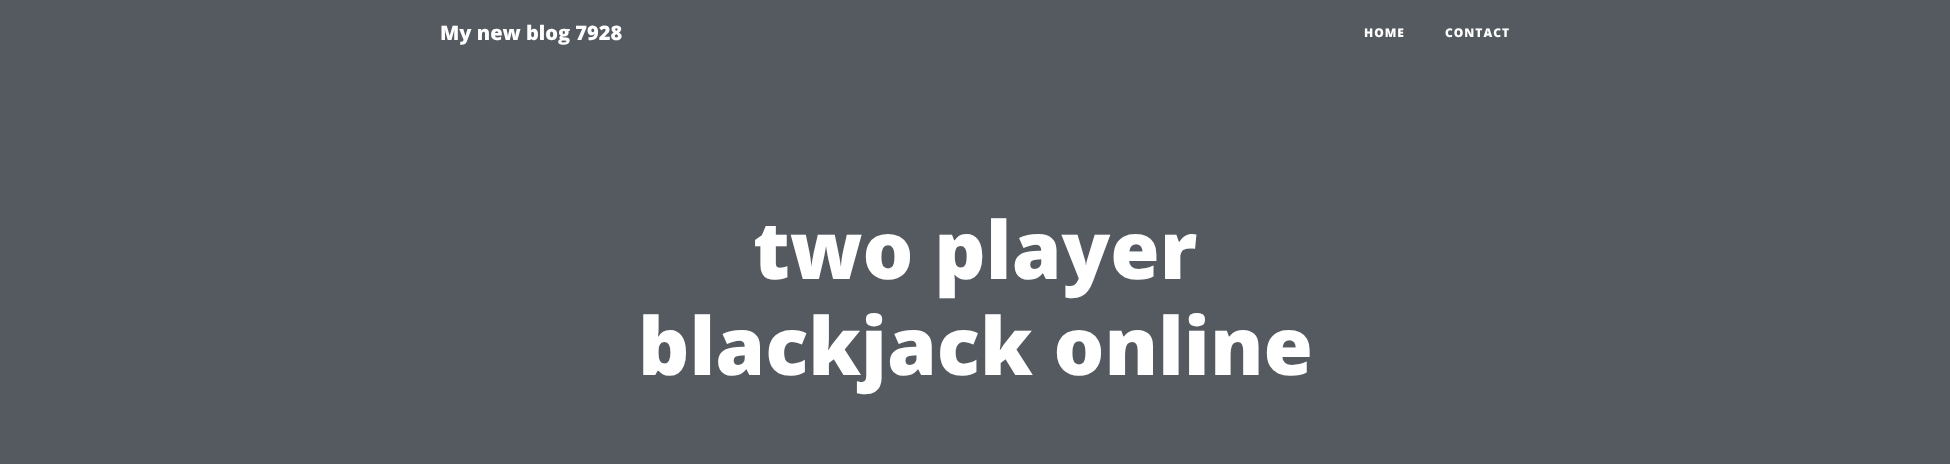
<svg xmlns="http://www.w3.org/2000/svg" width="1950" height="464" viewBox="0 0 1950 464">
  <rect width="100%" height="100%" fill="rgb(84,90,96)"/>
  <text x="440" y="40" font-family="Open Sans" font-size="20" font-weight="800" fill="rgb(255,255,255)">My new blog 7928</text>
  <g font-family="Open Sans" font-size="12" font-weight="800" letter-spacing="1" fill="rgb(255,255,255)">
    <text x="1364" y="37">HOME</text>
    <text x="1445" y="37">CONTACT</text>
  </g>
  <g font-family="Open Sans" font-size="80" font-weight="800" fill="rgb(255,255,255)">
    <text x="753" y="279">two player</text>
    <text x="638" y="375">blackjack online</text>
  </g>
</svg>
